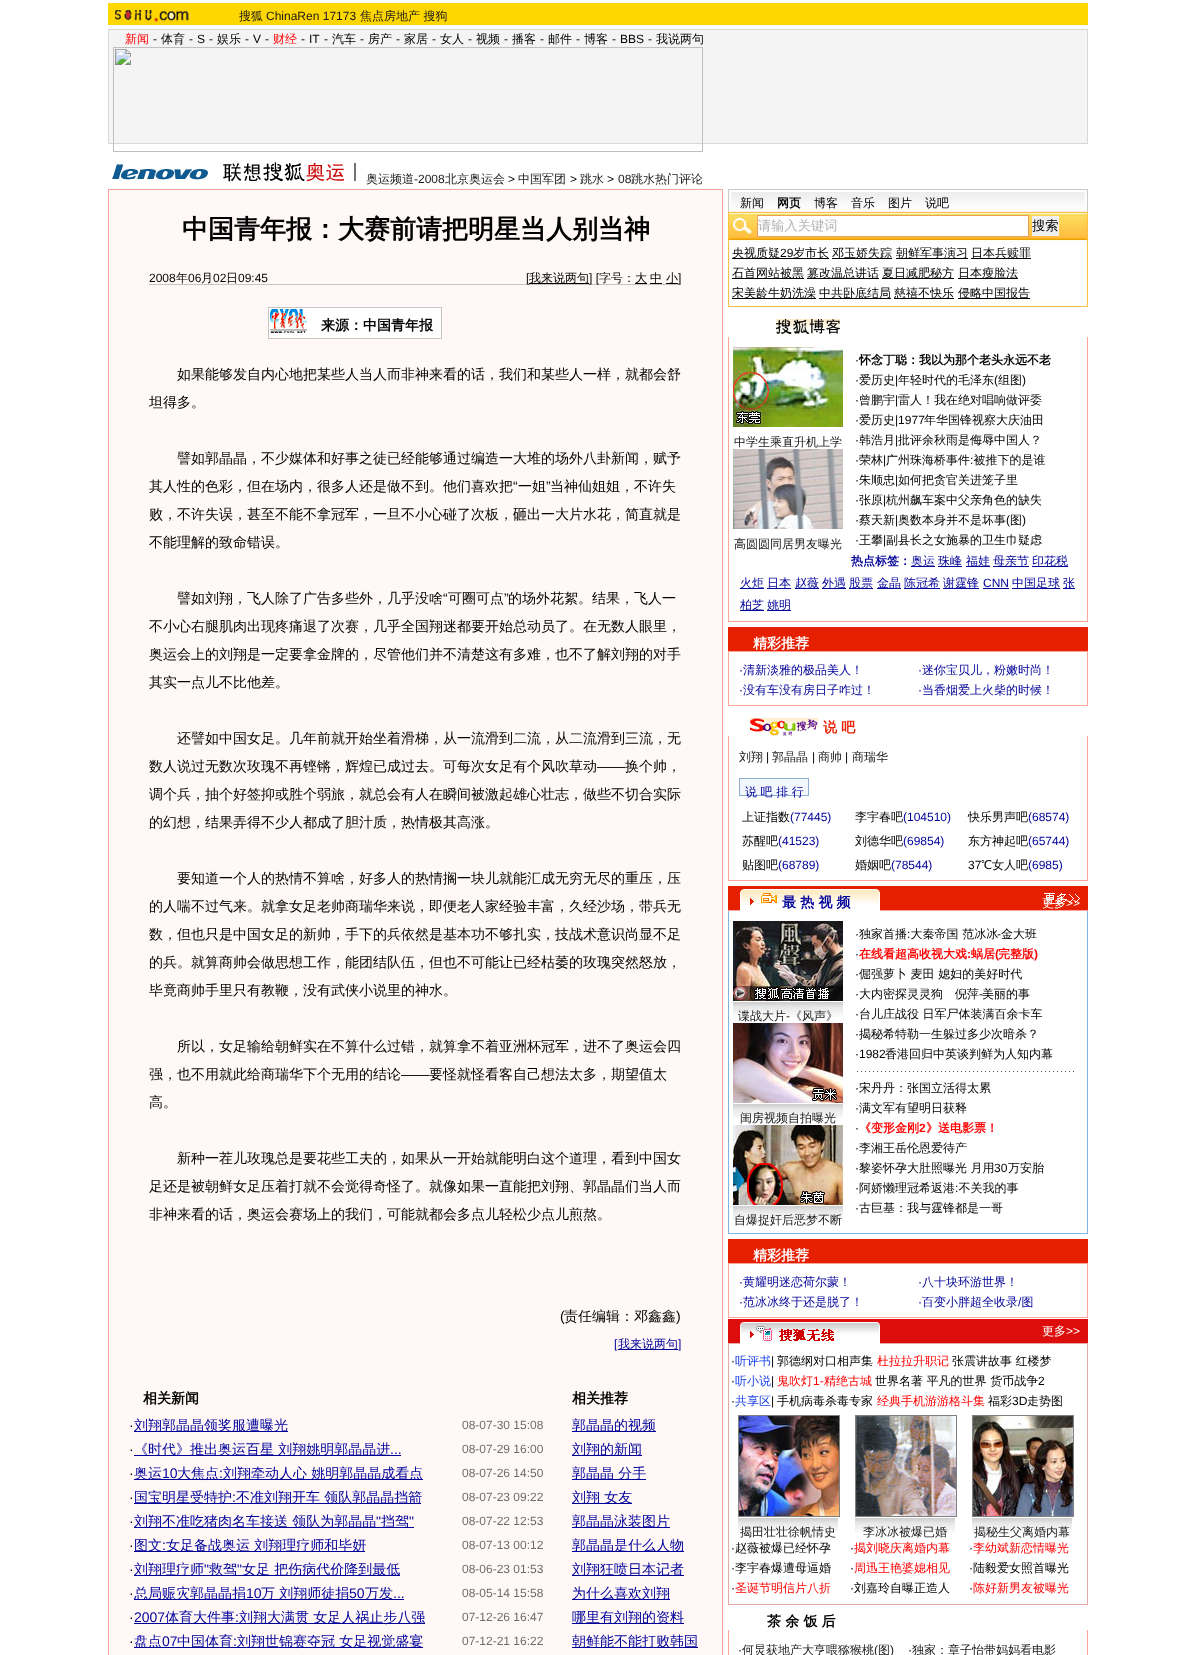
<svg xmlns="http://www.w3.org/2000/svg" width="1196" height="1655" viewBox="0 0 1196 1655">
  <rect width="100%" height="100%" fill="rgb(255,255,255)"/>
  <rect x="108" y="3" width="980" height="22" fill="rgb(255,215,0)"/>
  <image x="115" y="10" width="74" height="12" href="pic1.png"/>
  <text x="239" y="20" font-family="WenQuanYi Zen Hei" font-size="12" font-weight="500" fill="rgb(25,25,25)">搜狐</text>
  <text x="266" y="20" font-family="Liberation Sans" font-size="12" fill="rgb(25,25,25)">ChinaRen 17173</text>
  <text x="360" y="20" font-family="WenQuanYi Zen Hei" font-size="12" font-weight="500" fill="rgb(25,25,25)">焦点房地产 搜狗</text>
  <rect x="108.5" y="29.5" width="979" height="114" fill="rgb(244,244,244)" stroke="rgb(215,215,215)"/>
  <text x="125" y="43" font-family="WenQuanYi Zen Hei" font-size="12" font-weight="500" fill="rgb(255,0,0)">新闻</text>
  <text x="153" y="43" font-family="Liberation Sans" font-size="12" fill="rgb(0,0,0)">-</text>
  <text x="161" y="43" font-family="WenQuanYi Zen Hei" font-size="12" font-weight="500" fill="rgb(0,0,0)">体育</text>
  <g font-family="Liberation Sans" font-size="12" fill="rgb(0,0,0)">
    <text x="189" y="43">-</text>
    <text x="197" y="43">S</text>
    <text x="209" y="43">-</text>
  </g>
  <text x="217" y="43" font-family="WenQuanYi Zen Hei" font-size="12" font-weight="500" fill="rgb(0,0,0)">娱乐</text>
  <g font-family="Liberation Sans" font-size="12" fill="rgb(0,0,0)">
    <text x="245" y="43">-</text>
    <text x="253" y="43">V</text>
    <text x="265" y="43">-</text>
  </g>
  <text x="273" y="43" font-family="WenQuanYi Zen Hei" font-size="12" font-weight="500" fill="rgb(255,0,0)">财经</text>
  <g font-family="Liberation Sans" font-size="12" fill="rgb(0,0,0)">
    <text x="301" y="43">-</text>
    <text x="309" y="43">IT</text>
    <text x="324" y="43">-</text>
  </g>
  <text x="332" y="43" font-family="WenQuanYi Zen Hei" font-size="12" font-weight="500" fill="rgb(0,0,0)">汽车</text>
  <text x="360" y="43" font-family="Liberation Sans" font-size="12" fill="rgb(0,0,0)">-</text>
  <text x="368" y="43" font-family="WenQuanYi Zen Hei" font-size="12" font-weight="500" fill="rgb(0,0,0)">房产</text>
  <text x="396" y="43" font-family="Liberation Sans" font-size="12" fill="rgb(0,0,0)">-</text>
  <text x="404" y="43" font-family="WenQuanYi Zen Hei" font-size="12" font-weight="500" fill="rgb(0,0,0)">家居</text>
  <text x="432" y="43" font-family="Liberation Sans" font-size="12" fill="rgb(0,0,0)">-</text>
  <text x="440" y="43" font-family="WenQuanYi Zen Hei" font-size="12" font-weight="500" fill="rgb(0,0,0)">女人</text>
  <text x="468" y="43" font-family="Liberation Sans" font-size="12" fill="rgb(0,0,0)">-</text>
  <text x="476" y="43" font-family="WenQuanYi Zen Hei" font-size="12" font-weight="500" fill="rgb(0,0,0)">视频</text>
  <text x="504" y="43" font-family="Liberation Sans" font-size="12" fill="rgb(0,0,0)">-</text>
  <text x="512" y="43" font-family="WenQuanYi Zen Hei" font-size="12" font-weight="500" fill="rgb(0,0,0)">播客</text>
  <text x="540" y="43" font-family="Liberation Sans" font-size="12" fill="rgb(0,0,0)">-</text>
  <text x="548" y="43" font-family="WenQuanYi Zen Hei" font-size="12" font-weight="500" fill="rgb(0,0,0)">邮件</text>
  <text x="576" y="43" font-family="Liberation Sans" font-size="12" fill="rgb(0,0,0)">-</text>
  <text x="584" y="43" font-family="WenQuanYi Zen Hei" font-size="12" font-weight="500" fill="rgb(0,0,0)">博客</text>
  <g font-family="Liberation Sans" font-size="12" fill="rgb(0,0,0)">
    <text x="612" y="43">-</text>
    <text x="620" y="43">BBS</text>
    <text x="648" y="43">-</text>
  </g>
  <text x="656" y="43" font-family="WenQuanYi Zen Hei" font-size="12" font-weight="500" fill="rgb(0,0,0)">我说两句</text>
  <image x="113" y="47" width="590" height="105" href="pic2.png"/>
  <image x="112" y="162" width="244" height="20" href="pic3.png"/>
  <text x="366" y="183" font-family="WenQuanYi Zen Hei" font-size="12" font-weight="500" fill="rgb(25,25,25)">奥运频道</text>
  <text x="414" y="183" font-family="Liberation Sans" font-size="12" fill="rgb(25,25,25)">-2008</text>
  <text x="445" y="183" font-family="WenQuanYi Zen Hei" font-size="12" font-weight="500" fill="rgb(25,25,25)">北京奥运会</text>
  <text x="508" y="183" font-family="Liberation Sans" font-size="12" fill="rgb(0,0,0)">&gt;</text>
  <text x="518" y="183" font-family="WenQuanYi Zen Hei" font-size="12" font-weight="500" fill="rgb(25,25,25)">中国军团</text>
  <text x="570" y="183" font-family="Liberation Sans" font-size="12" fill="rgb(0,0,0)">&gt;</text>
  <text x="580" y="183" font-family="WenQuanYi Zen Hei" font-size="12" font-weight="500" fill="rgb(25,25,25)">跳水</text>
  <text x="607" y="183" font-family="Liberation Sans" font-size="12" fill="rgb(0,0,0)">&gt;</text>
  <text x="618" y="183" font-family="Liberation Sans" font-size="12" fill="rgb(25,25,25)">08</text>
  <text x="631" y="183" font-family="WenQuanYi Zen Hei" font-size="12" font-weight="500" fill="rgb(25,25,25)">跳水热门评论</text>
  <rect x="108.5" y="189.5" width="614" height="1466" fill="rgb(255,248,246)" stroke="rgb(255,164,155)"/>
  <text x="182" y="238" font-family="WenQuanYi Zen Hei" font-size="26" font-weight="bold" fill="rgb(0,0,0)">中国青年报：大赛前请把明星当人别当神</text>
  <rect x="149" y="284" width="532" height="1" fill="rgb(197,197,197)"/>
  <text x="149" y="282" font-family="Liberation Sans" font-size="12" fill="rgb(0,0,0)">2008</text>
  <text x="176" y="282" font-family="WenQuanYi Zen Hei" font-size="12" font-weight="500" fill="rgb(0,0,0)">年</text>
  <text x="188" y="282" font-family="Liberation Sans" font-size="12" fill="rgb(0,0,0)">06</text>
  <text x="201" y="282" font-family="WenQuanYi Zen Hei" font-size="12" font-weight="500" fill="rgb(0,0,0)">月</text>
  <text x="213" y="282" font-family="Liberation Sans" font-size="12" fill="rgb(0,0,0)">02</text>
  <text x="226" y="282" font-family="WenQuanYi Zen Hei" font-size="12" font-weight="500" fill="rgb(0,0,0)">日</text>
  <g font-family="Liberation Sans" font-size="12" fill="rgb(0,0,0)">
    <text x="238" y="282">09:45</text>
    <text x="526" y="282">[</text>
  </g>
  <rect x="529" y="283" width="60" height="1" fill="rgb(0,0,0)"/>
  <text x="529" y="282" font-family="WenQuanYi Zen Hei" font-size="12" font-weight="500" fill="rgb(0,0,0)">我来说两句</text>
  <text x="589" y="282" font-family="Liberation Sans" font-size="12" fill="rgb(0,0,0)">] [</text>
  <text x="599" y="282" font-family="WenQuanYi Zen Hei" font-size="12" font-weight="500" fill="rgb(0,0,0)">字号：</text>
  <rect x="635" y="283" width="12" height="1" fill="rgb(0,0,0)"/>
  <text x="635" y="282" font-family="WenQuanYi Zen Hei" font-size="12" font-weight="500" fill="rgb(0,0,0)">大</text>
  <rect x="650" y="283" width="12" height="1" fill="rgb(0,0,0)"/>
  <text x="650" y="282" font-family="WenQuanYi Zen Hei" font-size="12" font-weight="500" fill="rgb(0,0,0)">中</text>
  <rect x="666" y="283" width="12" height="1" fill="rgb(0,0,0)"/>
  <text x="666" y="282" font-family="WenQuanYi Zen Hei" font-size="12" font-weight="500" fill="rgb(0,0,0)">小</text>
  <text x="678" y="282" font-family="Liberation Sans" font-size="12" fill="rgb(0,0,0)">]</text>
  <rect x="268.5" y="307.5" width="173" height="31" fill="rgb(255,255,255)" stroke="rgb(197,197,197)"/>
  <image x="270" y="309" width="37" height="24" href="pic4.png"/>
  <text x="321" y="330" font-family="WenQuanYi Zen Hei" font-size="14" font-weight="bold" fill="rgb(0,0,0)">来源：中国青年报</text>
  <g font-family="WenQuanYi Zen Hei" font-size="14" font-weight="500" fill="rgb(0,0,0)">
    <text x="177" y="379">如果能够发自内心地把某些人当人而非神来看的话，我们和某些人一样，就都会舒</text>
    <text x="149" y="407">坦得多。</text>
    <text x="177" y="463">譬如郭晶晶，不少媒体和好事之徒已经能够通过编造一大堆的场外八卦新闻，赋予</text>
    <text x="149" y="491">其人性的色彩，但在场内，很多人还是做不到。他们喜欢把</text>
  </g>
  <text x="513" y="491" font-family="Liberation Sans" font-size="14" fill="rgb(0,0,0)">“</text>
  <text x="518" y="491" font-family="WenQuanYi Zen Hei" font-size="14" font-weight="500" fill="rgb(0,0,0)">一姐</text>
  <text x="546" y="491" font-family="Liberation Sans" font-size="14" fill="rgb(0,0,0)">”</text>
  <g font-family="WenQuanYi Zen Hei" font-size="14" font-weight="500" fill="rgb(0,0,0)">
    <text x="550" y="491">当神仙姐姐，不许失</text>
    <text x="149" y="519">败，不许失误，甚至不能不拿冠军，一旦不小心碰了次板，砸出一大片水花，简直就是</text>
    <text x="149" y="547">不能理解的致命错误。</text>
    <text x="177" y="603">譬如刘翔，飞人除了广告多些外，几乎没啥</text>
  </g>
  <text x="443" y="603" font-family="Liberation Sans" font-size="14" fill="rgb(0,0,0)">“</text>
  <text x="448" y="603" font-family="WenQuanYi Zen Hei" font-size="14" font-weight="500" fill="rgb(0,0,0)">可圈可点</text>
  <text x="504" y="603" font-family="Liberation Sans" font-size="14" fill="rgb(0,0,0)">”</text>
  <g font-family="WenQuanYi Zen Hei" font-size="14" font-weight="500" fill="rgb(0,0,0)">
    <text x="508" y="603">的场外花絮。结果，飞人一</text>
    <text x="149" y="631">不小心右腿肌肉出现疼痛退了次赛，几乎全国翔迷都要开始总动员了。在无数人眼里，</text>
    <text x="149" y="659">奥运会上的刘翔是一定要拿金牌的，尽管他们并不清楚这有多难，也不了解刘翔的对手</text>
    <text x="149" y="687">其实一点儿不比他差。</text>
    <text x="177" y="743">还譬如中国女足。几年前就开始坐着滑梯，从一流滑到二流，从二流滑到三流，无</text>
    <text x="149" y="771">数人说过无数次玫瑰不再铿锵，辉煌已成过去。可每次女足有个风吹草动</text>
  </g>
  <text x="597" y="771" font-family="Liberation Sans" font-size="14" fill="rgb(0,0,0)">——</text>
  <g font-family="WenQuanYi Zen Hei" font-size="14" font-weight="500" fill="rgb(0,0,0)">
    <text x="625" y="771">换个帅，</text>
    <text x="149" y="799">调个兵，抽个好签抑或胜个弱旅，就总会有人在瞬间被激起雄心壮志，做些不切合实际</text>
    <text x="149" y="827">的幻想，结果弄得不少人都成了胆汁质，热情极其高涨。</text>
    <text x="177" y="883">要知道一个人的热情不算啥，好多人的热情搁一块儿就能汇成无穷无尽的重压，压</text>
    <text x="149" y="911">的人喘不过气来。就拿女足老帅商瑞华来说，即便老人家经验丰富，久经沙场，带兵无</text>
    <text x="149" y="939">数，但也只是中国女足的新帅，手下的兵依然是基本功不够扎实，技战术意识尚显不足</text>
    <text x="149" y="967">的兵。就算商帅会做思想工作，能团结队伍，但也不可能让已经枯萎的玫瑰突然怒放，</text>
    <text x="149" y="995">毕竟商帅手里只有教鞭，没有武侠小说里的神水。</text>
    <text x="177" y="1051">所以，女足输给朝鲜实在不算什么过错，就算拿不着亚洲杯冠军，进不了奥运会四</text>
    <text x="149" y="1079">强，也不用就此给商瑞华下个无用的结论</text>
  </g>
  <text x="401" y="1079" font-family="Liberation Sans" font-size="14" fill="rgb(0,0,0)">——</text>
  <g font-family="WenQuanYi Zen Hei" font-size="14" font-weight="500" fill="rgb(0,0,0)">
    <text x="429" y="1079">要怪就怪看客自己想法太多，期望值太</text>
    <text x="149" y="1107">高。</text>
    <text x="177" y="1163">新种一茬儿玫瑰总是要花些工夫的，如果从一开始就能明白这个道理，看到中国女</text>
    <text x="149" y="1191">足还是被朝鲜女足压着打就不会觉得奇怪了。就像如果一直能把刘翔、郭晶晶们当人而</text>
    <text x="149" y="1219">非神来看的话，奥运会赛场上的我们，可能就都会多点儿轻松少点儿煎熬。</text>
  </g>
  <text x="560" y="1321" font-family="Liberation Sans" font-size="14" fill="rgb(0,0,0)">(</text>
  <text x="564" y="1321" font-family="WenQuanYi Zen Hei" font-size="14" font-weight="500" fill="rgb(0,0,0)">责任编辑：邓鑫鑫</text>
  <text x="676" y="1321" font-family="Liberation Sans" font-size="14" fill="rgb(0,0,0)">)</text>
  <text x="614" y="1348" font-family="Liberation Sans" font-size="12" fill="rgb(0,0,153)">[</text>
  <rect x="618" y="1349" width="60" height="1" fill="rgb(0,0,153)"/>
  <text x="618" y="1348" font-family="WenQuanYi Zen Hei" font-size="12" font-weight="500" fill="rgb(0,0,153)">我来说两句</text>
  <text x="678" y="1348" font-family="Liberation Sans" font-size="12" fill="rgb(0,0,153)">]</text>
  <text x="143" y="1403" font-family="WenQuanYi Zen Hei" font-size="14" font-weight="bold" fill="rgb(0,0,0)">相关新闻</text>
  <text x="129" y="1430" font-family="Liberation Sans" font-size="14" fill="rgb(0,0,0)">·</text>
  <rect x="134" y="1431" width="154" height="1" fill="rgb(0,0,153)"/>
  <text x="134" y="1430" font-family="WenQuanYi Zen Hei" font-size="14" font-weight="500" fill="rgb(0,0,153)">刘翔郭晶晶领奖服遭曝光</text>
  <text x="462" y="1429" font-family="Liberation Sans" font-size="12" fill="rgb(109,109,109)">08-07-30 15:08</text>
  <text x="129" y="1454" font-family="Liberation Sans" font-size="14" fill="rgb(0,0,0)">·</text>
  <rect x="134" y="1455" width="267" height="1" fill="rgb(0,0,153)"/>
  <text x="134" y="1454" font-family="WenQuanYi Zen Hei" font-size="14" font-weight="500" fill="rgb(0,0,153)">《时代》推出奥运百星 刘翔姚明郭晶晶进</text>
  <text x="462" y="1453" font-family="Liberation Sans" font-size="12" fill="rgb(109,109,109)">08-07-29 16:00</text>
  <text x="390" y="1454" font-family="Liberation Sans" font-size="14" fill="rgb(0,0,153)">...</text>
  <text x="129" y="1478" font-family="Liberation Sans" font-size="14" fill="rgb(0,0,0)">·</text>
  <rect x="134" y="1479" width="289" height="1" fill="rgb(0,0,153)"/>
  <text x="134" y="1478" font-family="WenQuanYi Zen Hei" font-size="14" font-weight="500" fill="rgb(0,0,153)">奥运</text>
  <text x="162" y="1478" font-family="Liberation Sans" font-size="14" fill="rgb(0,0,153)">10</text>
  <text x="177" y="1478" font-family="WenQuanYi Zen Hei" font-size="14" font-weight="500" fill="rgb(0,0,153)">大焦点</text>
  <text x="219" y="1478" font-family="Liberation Sans" font-size="14" fill="rgb(0,0,153)">:</text>
  <text x="223" y="1478" font-family="WenQuanYi Zen Hei" font-size="14" font-weight="500" fill="rgb(0,0,153)">刘翔牵动人心 姚明郭晶晶成看点</text>
  <text x="462" y="1477" font-family="Liberation Sans" font-size="12" fill="rgb(109,109,109)">08-07-26 14:50</text>
  <text x="129" y="1502" font-family="Liberation Sans" font-size="14" fill="rgb(0,0,0)">·</text>
  <rect x="134" y="1503" width="287" height="1" fill="rgb(0,0,153)"/>
  <text x="134" y="1502" font-family="WenQuanYi Zen Hei" font-size="14" font-weight="500" fill="rgb(0,0,153)">国宝明星受特护</text>
  <text x="232" y="1502" font-family="Liberation Sans" font-size="14" fill="rgb(0,0,153)">:</text>
  <text x="236" y="1502" font-family="WenQuanYi Zen Hei" font-size="14" font-weight="500" fill="rgb(0,0,153)">不准刘翔开车 领队郭晶晶挡箭</text>
  <text x="462" y="1501" font-family="Liberation Sans" font-size="12" fill="rgb(109,109,109)">08-07-23 09:22</text>
  <text x="129" y="1526" font-family="Liberation Sans" font-size="14" fill="rgb(0,0,0)">·</text>
  <rect x="134" y="1527" width="280" height="1" fill="rgb(0,0,153)"/>
  <text x="134" y="1526" font-family="WenQuanYi Zen Hei" font-size="14" font-weight="500" fill="rgb(0,0,153)">刘翔不准吃猪肉名车接送 领队为郭晶晶</text>
  <text x="376" y="1526" font-family="Liberation Sans" font-size="14" fill="rgb(0,0,153)">"</text>
  <text x="381" y="1526" font-family="WenQuanYi Zen Hei" font-size="14" font-weight="500" fill="rgb(0,0,153)">挡驾</text>
  <text x="409" y="1526" font-family="Liberation Sans" font-size="14" fill="rgb(0,0,153)">"</text>
  <text x="462" y="1525" font-family="Liberation Sans" font-size="12" fill="rgb(109,109,109)">08-07-22 12:53</text>
  <text x="129" y="1550" font-family="Liberation Sans" font-size="14" fill="rgb(0,0,0)">·</text>
  <rect x="134" y="1551" width="231" height="1" fill="rgb(0,0,153)"/>
  <text x="134" y="1550" font-family="WenQuanYi Zen Hei" font-size="14" font-weight="500" fill="rgb(0,0,153)">图文</text>
  <text x="162" y="1550" font-family="Liberation Sans" font-size="14" fill="rgb(0,0,153)">:</text>
  <text x="166" y="1550" font-family="WenQuanYi Zen Hei" font-size="14" font-weight="500" fill="rgb(0,0,153)">女足备战奥运 刘翔理疗师和毕妍</text>
  <text x="462" y="1549" font-family="Liberation Sans" font-size="12" fill="rgb(109,109,109)">08-07-13 00:12</text>
  <text x="129" y="1574" font-family="Liberation Sans" font-size="14" fill="rgb(0,0,0)">·</text>
  <rect x="134" y="1575" width="266" height="1" fill="rgb(0,0,153)"/>
  <text x="134" y="1574" font-family="WenQuanYi Zen Hei" font-size="14" font-weight="500" fill="rgb(0,0,153)">刘翔理疗师</text>
  <text x="204" y="1574" font-family="Liberation Sans" font-size="14" fill="rgb(0,0,153)">"</text>
  <text x="209" y="1574" font-family="WenQuanYi Zen Hei" font-size="14" font-weight="500" fill="rgb(0,0,153)">救驾</text>
  <text x="237" y="1574" font-family="Liberation Sans" font-size="14" fill="rgb(0,0,153)">"</text>
  <text x="242" y="1574" font-family="WenQuanYi Zen Hei" font-size="14" font-weight="500" fill="rgb(0,0,153)">女足 把伤病代价降到最低</text>
  <text x="462" y="1573" font-family="Liberation Sans" font-size="12" fill="rgb(109,109,109)">08-06-23 01:53</text>
  <text x="129" y="1598" font-family="Liberation Sans" font-size="14" fill="rgb(0,0,0)">·</text>
  <rect x="134" y="1599" width="270" height="1" fill="rgb(0,0,153)"/>
  <text x="134" y="1598" font-family="WenQuanYi Zen Hei" font-size="14" font-weight="500" fill="rgb(0,0,153)">总局赈灾郭晶晶捐</text>
  <text x="246" y="1598" font-family="Liberation Sans" font-size="14" fill="rgb(0,0,153)">10</text>
  <text x="261" y="1598" font-family="WenQuanYi Zen Hei" font-size="14" font-weight="500" fill="rgb(0,0,153)">万 刘翔师徒捐</text>
  <text x="349" y="1598" font-family="Liberation Sans" font-size="14" fill="rgb(0,0,153)">50</text>
  <text x="365" y="1598" font-family="WenQuanYi Zen Hei" font-size="14" font-weight="500" fill="rgb(0,0,153)">万发</text>
  <text x="462" y="1597" font-family="Liberation Sans" font-size="12" fill="rgb(109,109,109)">08-05-14 15:58</text>
  <text x="393" y="1598" font-family="Liberation Sans" font-size="14" fill="rgb(0,0,153)">...</text>
  <text x="129" y="1622" font-family="Liberation Sans" font-size="14" fill="rgb(0,0,0)">·</text>
  <text x="134" y="1622" font-family="Liberation Sans" font-size="14" fill="rgb(0,0,153)">2007</text>
  <rect x="134" y="1623" width="291" height="1" fill="rgb(0,0,153)"/>
  <text x="165" y="1622" font-family="WenQuanYi Zen Hei" font-size="14" font-weight="500" fill="rgb(0,0,153)">体育大件事</text>
  <text x="235" y="1622" font-family="Liberation Sans" font-size="14" fill="rgb(0,0,153)">:</text>
  <text x="239" y="1622" font-family="WenQuanYi Zen Hei" font-size="14" font-weight="500" fill="rgb(0,0,153)">刘翔大满贯 女足人祸止步八强</text>
  <text x="462" y="1621" font-family="Liberation Sans" font-size="12" fill="rgb(109,109,109)">07-12-26 16:47</text>
  <text x="129" y="1646" font-family="Liberation Sans" font-size="14" fill="rgb(0,0,0)">·</text>
  <rect x="134" y="1647" width="289" height="1" fill="rgb(0,0,153)"/>
  <text x="134" y="1646" font-family="WenQuanYi Zen Hei" font-size="14" font-weight="500" fill="rgb(0,0,153)">盘点</text>
  <text x="162" y="1646" font-family="Liberation Sans" font-size="14" fill="rgb(0,0,153)">07</text>
  <text x="177" y="1646" font-family="WenQuanYi Zen Hei" font-size="14" font-weight="500" fill="rgb(0,0,153)">中国体育</text>
  <text x="233" y="1646" font-family="Liberation Sans" font-size="14" fill="rgb(0,0,153)">:</text>
  <text x="237" y="1646" font-family="WenQuanYi Zen Hei" font-size="14" font-weight="500" fill="rgb(0,0,153)">刘翔世锦赛夺冠 女足视觉盛宴</text>
  <text x="462" y="1645" font-family="Liberation Sans" font-size="12" fill="rgb(109,109,109)">07-12-21 16:22</text>
  <text x="572" y="1403" font-family="WenQuanYi Zen Hei" font-size="14" font-weight="bold" fill="rgb(0,0,0)">相关推荐</text>
  <rect x="572" y="1431" width="84" height="1" fill="rgb(0,0,153)"/>
  <text x="572" y="1430" font-family="WenQuanYi Zen Hei" font-size="14" font-weight="500" fill="rgb(0,0,153)">郭晶晶的视频</text>
  <rect x="572" y="1455" width="70" height="1" fill="rgb(0,0,153)"/>
  <text x="572" y="1454" font-family="WenQuanYi Zen Hei" font-size="14" font-weight="500" fill="rgb(0,0,153)">刘翔的新闻</text>
  <rect x="572" y="1479" width="74" height="1" fill="rgb(0,0,153)"/>
  <text x="572" y="1478" font-family="WenQuanYi Zen Hei" font-size="14" font-weight="500" fill="rgb(0,0,153)">郭晶晶 分手</text>
  <rect x="572" y="1503" width="60" height="1" fill="rgb(0,0,153)"/>
  <text x="572" y="1502" font-family="WenQuanYi Zen Hei" font-size="14" font-weight="500" fill="rgb(0,0,153)">刘翔 女友</text>
  <rect x="572" y="1527" width="98" height="1" fill="rgb(0,0,153)"/>
  <text x="572" y="1526" font-family="WenQuanYi Zen Hei" font-size="14" font-weight="500" fill="rgb(0,0,153)">郭晶晶泳装图片</text>
  <rect x="572" y="1551" width="112" height="1" fill="rgb(0,0,153)"/>
  <text x="572" y="1550" font-family="WenQuanYi Zen Hei" font-size="14" font-weight="500" fill="rgb(0,0,153)">郭晶晶是什么人物</text>
  <rect x="572" y="1575" width="112" height="1" fill="rgb(0,0,153)"/>
  <text x="572" y="1574" font-family="WenQuanYi Zen Hei" font-size="14" font-weight="500" fill="rgb(0,0,153)">刘翔狂喷日本记者</text>
  <rect x="572" y="1599" width="98" height="1" fill="rgb(0,0,153)"/>
  <text x="572" y="1598" font-family="WenQuanYi Zen Hei" font-size="14" font-weight="500" fill="rgb(0,0,153)">为什么喜欢刘翔</text>
  <rect x="572" y="1623" width="112" height="1" fill="rgb(0,0,153)"/>
  <text x="572" y="1622" font-family="WenQuanYi Zen Hei" font-size="14" font-weight="500" fill="rgb(0,0,153)">哪里有刘翔的资料</text>
  <rect x="572" y="1647" width="126" height="1" fill="rgb(0,0,153)"/>
  <text x="572" y="1646" font-family="WenQuanYi Zen Hei" font-size="14" font-weight="500" fill="rgb(0,0,153)">朝鲜能不能打败韩国</text>
  <image x="728" y="189" width="360" height="118" href="pic5.png"/>
  <text x="740" y="207" font-family="WenQuanYi Zen Hei" font-size="12" font-weight="500" fill="rgb(0,0,0)">新闻</text>
  <text x="777" y="207" font-family="WenQuanYi Zen Hei" font-size="12" font-weight="bold" fill="rgb(0,0,0)">网页</text>
  <g font-family="WenQuanYi Zen Hei" font-size="12" font-weight="500" fill="rgb(0,0,0)">
    <text x="814" y="207">博客</text>
    <text x="851" y="207">音乐</text>
    <text x="888" y="207">图片</text>
    <text x="925" y="207">说吧</text>
  </g>
  <rect x="757.5" y="215.5" width="271" height="21" fill="rgb(255,255,255)" stroke="rgb(232,159,87)"/>
  <text x="758" y="230" font-family="WenQuanYi Zen Hei" font-size="13.25" font-weight="500" fill="rgb(179,179,179)">请输入关键词</text>
  <rect x="1032" y="216" width="27" height="20" fill="rgb(239,239,239)"/>
  <text x="1032" y="230" font-family="WenQuanYi Zen Hei" font-size="13.25" font-weight="500" fill="rgb(0,0,0)">搜索</text>
  <rect x="732" y="258" width="97" height="1" fill="rgb(0,0,0)"/>
  <text x="732" y="257" font-family="WenQuanYi Zen Hei" font-size="12" font-weight="500" fill="rgb(0,0,0)">央视质疑</text>
  <text x="780" y="257" font-family="Liberation Sans" font-size="12" fill="rgb(0,0,0)">29</text>
  <text x="793" y="257" font-family="WenQuanYi Zen Hei" font-size="12" font-weight="500" fill="rgb(0,0,0)">岁市长</text>
  <rect x="832" y="258" width="60" height="1" fill="rgb(0,0,0)"/>
  <text x="832" y="257" font-family="WenQuanYi Zen Hei" font-size="12" font-weight="500" fill="rgb(0,0,0)">邓玉娇失踪</text>
  <rect x="896" y="258" width="72" height="1" fill="rgb(0,0,0)"/>
  <text x="896" y="257" font-family="WenQuanYi Zen Hei" font-size="12" font-weight="500" fill="rgb(0,0,0)">朝鲜军事演习</text>
  <rect x="971" y="258" width="60" height="1" fill="rgb(0,0,0)"/>
  <text x="971" y="257" font-family="WenQuanYi Zen Hei" font-size="12" font-weight="500" fill="rgb(0,0,0)">日本兵赎罪</text>
  <rect x="732" y="278" width="72" height="1" fill="rgb(0,0,0)"/>
  <text x="732" y="277" font-family="WenQuanYi Zen Hei" font-size="12" font-weight="500" fill="rgb(0,0,0)">石首网站被黑</text>
  <rect x="807" y="278" width="72" height="1" fill="rgb(0,0,0)"/>
  <text x="807" y="277" font-family="WenQuanYi Zen Hei" font-size="12" font-weight="500" fill="rgb(0,0,0)">篡改温总讲话</text>
  <rect x="882" y="278" width="72" height="1" fill="rgb(0,0,0)"/>
  <text x="882" y="277" font-family="WenQuanYi Zen Hei" font-size="12" font-weight="500" fill="rgb(0,0,0)">夏日减肥秘方</text>
  <rect x="958" y="278" width="60" height="1" fill="rgb(0,0,0)"/>
  <text x="958" y="277" font-family="WenQuanYi Zen Hei" font-size="12" font-weight="500" fill="rgb(0,0,0)">日本瘦脸法</text>
  <rect x="732" y="298" width="84" height="1" fill="rgb(0,0,0)"/>
  <text x="732" y="297" font-family="WenQuanYi Zen Hei" font-size="12" font-weight="500" fill="rgb(0,0,0)">宋美龄牛奶洗澡</text>
  <rect x="819" y="298" width="72" height="1" fill="rgb(0,0,0)"/>
  <text x="819" y="297" font-family="WenQuanYi Zen Hei" font-size="12" font-weight="500" fill="rgb(0,0,0)">中共卧底结局</text>
  <rect x="894" y="298" width="60" height="1" fill="rgb(0,0,0)"/>
  <text x="894" y="297" font-family="WenQuanYi Zen Hei" font-size="12" font-weight="500" fill="rgb(0,0,0)">慈禧不快乐</text>
  <rect x="958" y="298" width="72" height="1" fill="rgb(0,0,0)"/>
  <text x="958" y="297" font-family="WenQuanYi Zen Hei" font-size="12" font-weight="500" fill="rgb(0,0,0)">侵略中国报告</text>
  <image x="776" y="319" width="64" height="15" href="pic6.png"/>
  <rect x="1087" y="337" width="1" height="285" fill="rgb(255,164,155)"/>
  <rect x="728" y="621" width="360" height="1" fill="rgb(255,164,155)"/>
  <rect x="728" y="337" width="1" height="285" fill="rgb(255,164,155)"/>
  <image x="733" y="347" width="110" height="80" href="pic7.png"/>
  <text x="734" y="446" font-family="WenQuanYi Zen Hei" font-size="12" font-weight="500" fill="rgb(25,25,25)">中学生乘直升机上学</text>
  <image x="733" y="449" width="110" height="80" href="pic8.png"/>
  <text x="734" y="548" font-family="WenQuanYi Zen Hei" font-size="12" font-weight="500" fill="rgb(25,25,25)">高圆圆同居男友曝光</text>
  <text x="855" y="364" font-family="Liberation Sans" font-size="12" fill="rgb(0,0,0)">·</text>
  <text x="859" y="364" font-family="WenQuanYi Zen Hei" font-size="12" font-weight="bold" fill="rgb(0,0,0)">怀念丁聪：我以为那个老头永远不老</text>
  <text x="855" y="384" font-family="Liberation Sans" font-size="12" fill="rgb(0,0,0)">·</text>
  <text x="859" y="384" font-family="WenQuanYi Zen Hei" font-size="12" font-weight="500" fill="rgb(0,0,0)">爱历史</text>
  <text x="895" y="384" font-family="Liberation Sans" font-size="12" fill="rgb(0,0,0)">|</text>
  <text x="898" y="384" font-family="WenQuanYi Zen Hei" font-size="12" font-weight="500" fill="rgb(0,0,0)">年轻时代的毛泽东</text>
  <text x="994" y="384" font-family="Liberation Sans" font-size="12" fill="rgb(0,0,0)">(</text>
  <text x="998" y="384" font-family="WenQuanYi Zen Hei" font-size="12" font-weight="500" fill="rgb(0,0,0)">组图</text>
  <g font-family="Liberation Sans" font-size="12" fill="rgb(0,0,0)">
    <text x="1022" y="384">)</text>
    <text x="855" y="404">·</text>
  </g>
  <text x="859" y="404" font-family="WenQuanYi Zen Hei" font-size="12" font-weight="500" fill="rgb(0,0,0)">曾鹏宇</text>
  <text x="895" y="404" font-family="Liberation Sans" font-size="12" fill="rgb(0,0,0)">|</text>
  <text x="898" y="404" font-family="WenQuanYi Zen Hei" font-size="12" font-weight="500" fill="rgb(0,0,0)">雷人！我在绝对唱响做评委</text>
  <text x="855" y="424" font-family="Liberation Sans" font-size="12" fill="rgb(0,0,0)">·</text>
  <text x="859" y="424" font-family="WenQuanYi Zen Hei" font-size="12" font-weight="500" fill="rgb(0,0,0)">爱历史</text>
  <text x="895" y="424" font-family="Liberation Sans" font-size="12" fill="rgb(0,0,0)">|1977</text>
  <text x="924" y="424" font-family="WenQuanYi Zen Hei" font-size="12" font-weight="500" fill="rgb(0,0,0)">年华国锋视察大庆油田</text>
  <text x="855" y="444" font-family="Liberation Sans" font-size="12" fill="rgb(0,0,0)">·</text>
  <text x="859" y="444" font-family="WenQuanYi Zen Hei" font-size="12" font-weight="500" fill="rgb(0,0,0)">韩浩月</text>
  <text x="895" y="444" font-family="Liberation Sans" font-size="12" fill="rgb(0,0,0)">|</text>
  <g font-family="WenQuanYi Zen Hei" font-size="12" font-weight="500" fill="rgb(0,0,0)">
    <text x="898" y="444">批评余秋雨是侮辱中国人？</text>
    <text x="859" y="464">荣林</text>
  </g>
  <text x="883" y="464" font-family="Liberation Sans" font-size="12" fill="rgb(0,0,0)">|</text>
  <text x="886" y="464" font-family="WenQuanYi Zen Hei" font-size="12" font-weight="500" fill="rgb(0,0,0)">广州珠海桥事件 被推下的是谁</text>
  <g font-family="Liberation Sans" font-size="12" fill="rgb(0,0,0)">
    <text x="855" y="464">·</text>
    <text x="970" y="464">:</text>
    <text x="855" y="484">·</text>
  </g>
  <text x="859" y="484" font-family="WenQuanYi Zen Hei" font-size="12" font-weight="500" fill="rgb(0,0,0)">朱顺忠</text>
  <text x="895" y="484" font-family="Liberation Sans" font-size="12" fill="rgb(0,0,0)">|</text>
  <text x="898" y="484" font-family="WenQuanYi Zen Hei" font-size="12" font-weight="500" fill="rgb(0,0,0)">如何把贪官关进笼子里</text>
  <text x="855" y="504" font-family="Liberation Sans" font-size="12" fill="rgb(0,0,0)">·</text>
  <text x="859" y="504" font-family="WenQuanYi Zen Hei" font-size="12" font-weight="500" fill="rgb(0,0,0)">张原</text>
  <text x="883" y="504" font-family="Liberation Sans" font-size="12" fill="rgb(0,0,0)">|</text>
  <text x="886" y="504" font-family="WenQuanYi Zen Hei" font-size="12" font-weight="500" fill="rgb(0,0,0)">杭州飙车案中父亲角色的缺失</text>
  <text x="855" y="524" font-family="Liberation Sans" font-size="12" fill="rgb(0,0,0)">·</text>
  <text x="859" y="524" font-family="WenQuanYi Zen Hei" font-size="12" font-weight="500" fill="rgb(0,0,0)">蔡天新</text>
  <text x="895" y="524" font-family="Liberation Sans" font-size="12" fill="rgb(0,0,0)">|</text>
  <text x="898" y="524" font-family="WenQuanYi Zen Hei" font-size="12" font-weight="500" fill="rgb(0,0,0)">奥数本身并不是坏事</text>
  <text x="1006" y="524" font-family="Liberation Sans" font-size="12" fill="rgb(0,0,0)">(</text>
  <text x="1010" y="524" font-family="WenQuanYi Zen Hei" font-size="12" font-weight="500" fill="rgb(0,0,0)">图</text>
  <g font-family="Liberation Sans" font-size="12" fill="rgb(0,0,0)">
    <text x="1022" y="524">)</text>
    <text x="855" y="544">·</text>
  </g>
  <text x="859" y="544" font-family="WenQuanYi Zen Hei" font-size="12" font-weight="500" fill="rgb(0,0,0)">王攀</text>
  <text x="883" y="544" font-family="Liberation Sans" font-size="12" fill="rgb(0,0,0)">|</text>
  <text x="886" y="544" font-family="WenQuanYi Zen Hei" font-size="12" font-weight="500" fill="rgb(0,0,0)">副县长之女施暴的卫生巾疑虑</text>
  <text x="851" y="565" font-family="WenQuanYi Zen Hei" font-size="12" font-weight="bold" fill="rgb(0,0,153)">热点标签：</text>
  <rect x="911" y="566" width="24" height="1" fill="rgb(0,0,153)"/>
  <text x="911" y="565" font-family="WenQuanYi Zen Hei" font-size="12" font-weight="500" fill="rgb(0,0,153)">奥运</text>
  <rect x="938" y="566" width="24" height="1" fill="rgb(0,0,153)"/>
  <text x="938" y="565" font-family="WenQuanYi Zen Hei" font-size="12" font-weight="500" fill="rgb(0,0,153)">珠峰</text>
  <rect x="966" y="566" width="24" height="1" fill="rgb(0,0,153)"/>
  <text x="966" y="565" font-family="WenQuanYi Zen Hei" font-size="12" font-weight="500" fill="rgb(0,0,153)">福娃</text>
  <rect x="993" y="566" width="36" height="1" fill="rgb(0,0,153)"/>
  <text x="993" y="565" font-family="WenQuanYi Zen Hei" font-size="12" font-weight="500" fill="rgb(0,0,153)">母亲节</text>
  <rect x="1032" y="566" width="36" height="1" fill="rgb(0,0,153)"/>
  <text x="1032" y="565" font-family="WenQuanYi Zen Hei" font-size="12" font-weight="500" fill="rgb(0,0,153)">印花税</text>
  <rect x="740" y="588" width="24" height="1" fill="rgb(0,0,153)"/>
  <text x="740" y="587" font-family="WenQuanYi Zen Hei" font-size="12" font-weight="500" fill="rgb(0,0,153)">火炬</text>
  <rect x="767" y="588" width="24" height="1" fill="rgb(0,0,153)"/>
  <text x="767" y="587" font-family="WenQuanYi Zen Hei" font-size="12" font-weight="500" fill="rgb(0,0,153)">日本</text>
  <rect x="795" y="588" width="24" height="1" fill="rgb(0,0,153)"/>
  <text x="795" y="587" font-family="WenQuanYi Zen Hei" font-size="12" font-weight="500" fill="rgb(0,0,153)">赵薇</text>
  <rect x="822" y="588" width="24" height="1" fill="rgb(0,0,153)"/>
  <text x="822" y="587" font-family="WenQuanYi Zen Hei" font-size="12" font-weight="500" fill="rgb(0,0,153)">外遇</text>
  <rect x="849" y="588" width="24" height="1" fill="rgb(0,0,153)"/>
  <text x="849" y="587" font-family="WenQuanYi Zen Hei" font-size="12" font-weight="500" fill="rgb(0,0,153)">股票</text>
  <rect x="877" y="588" width="24" height="1" fill="rgb(0,0,153)"/>
  <text x="877" y="587" font-family="WenQuanYi Zen Hei" font-size="12" font-weight="500" fill="rgb(0,0,153)">金晶</text>
  <rect x="904" y="588" width="36" height="1" fill="rgb(0,0,153)"/>
  <text x="904" y="587" font-family="WenQuanYi Zen Hei" font-size="12" font-weight="500" fill="rgb(0,0,153)">陈冠希</text>
  <rect x="943" y="588" width="36" height="1" fill="rgb(0,0,153)"/>
  <text x="943" y="587" font-family="WenQuanYi Zen Hei" font-size="12" font-weight="500" fill="rgb(0,0,153)">谢霆锋</text>
  <text x="983" y="587" font-family="Liberation Sans" font-size="12" fill="rgb(0,0,153)">CNN</text>
  <rect x="983" y="588" width="26" height="1" fill="rgb(0,0,153)"/>
  <rect x="1012" y="588" width="48" height="1" fill="rgb(0,0,153)"/>
  <text x="1012" y="587" font-family="WenQuanYi Zen Hei" font-size="12" font-weight="500" fill="rgb(0,0,153)">中国足球</text>
  <rect x="1063" y="588" width="12" height="1" fill="rgb(0,0,153)"/>
  <text x="1063" y="587" font-family="WenQuanYi Zen Hei" font-size="12" font-weight="500" fill="rgb(0,0,153)">张</text>
  <rect x="740" y="610" width="24" height="1" fill="rgb(0,0,153)"/>
  <text x="740" y="609" font-family="WenQuanYi Zen Hei" font-size="12" font-weight="500" fill="rgb(0,0,153)">柏芝</text>
  <rect x="767" y="610" width="24" height="1" fill="rgb(0,0,153)"/>
  <text x="767" y="609" font-family="WenQuanYi Zen Hei" font-size="12" font-weight="500" fill="rgb(0,0,153)">姚明</text>
  <rect x="728" y="627" width="360" height="24" fill="rgb(231,31,1)"/>
  <text x="753" y="648" font-family="WenQuanYi Zen Hei" font-size="14" font-weight="bold" fill="rgb(255,255,255)">精彩推荐</text>
  <rect x="728.5" y="651.5" width="359" height="54" fill="none" stroke="rgb(255,164,155)"/>
  <text x="739" y="674" font-family="Liberation Sans" font-size="12" fill="rgb(0,0,153)">·</text>
  <text x="743" y="674" font-family="WenQuanYi Zen Hei" font-size="12" font-weight="500" fill="rgb(0,0,153)">清新淡雅的极品美人！</text>
  <text x="918" y="674" font-family="Liberation Sans" font-size="12" fill="rgb(0,0,153)">·</text>
  <text x="922" y="674" font-family="WenQuanYi Zen Hei" font-size="12" font-weight="500" fill="rgb(0,0,153)">迷你宝贝儿，粉嫩时尚！</text>
  <text x="739" y="694" font-family="Liberation Sans" font-size="12" fill="rgb(0,0,153)">·</text>
  <text x="743" y="694" font-family="WenQuanYi Zen Hei" font-size="12" font-weight="500" fill="rgb(0,0,153)">没有车没有房日子咋过！</text>
  <text x="918" y="694" font-family="Liberation Sans" font-size="12" fill="rgb(0,0,153)">·</text>
  <text x="922" y="694" font-family="WenQuanYi Zen Hei" font-size="12" font-weight="500" fill="rgb(0,0,153)">当香烟爱上火柴的时候！</text>
  <image x="750" y="718" width="68" height="18" href="pic9.png"/>
  <text x="823" y="732" font-family="WenQuanYi Zen Hei" font-size="14" font-weight="bold" fill="rgb(231,31,1)">说 吧</text>
  <rect x="1087" y="736" width="1" height="145" fill="rgb(255,164,155)"/>
  <rect x="728" y="880" width="360" height="1" fill="rgb(255,164,155)"/>
  <rect x="728" y="736" width="1" height="145" fill="rgb(255,164,155)"/>
  <text x="739" y="761" font-family="WenQuanYi Zen Hei" font-size="12" font-weight="500" fill="rgb(25,25,25)">刘翔</text>
  <text x="766" y="761" font-family="Liberation Sans" font-size="12" fill="rgb(0,0,0)">|</text>
  <text x="772" y="761" font-family="WenQuanYi Zen Hei" font-size="12" font-weight="500" fill="rgb(25,25,25)">郭晶晶</text>
  <text x="812" y="761" font-family="Liberation Sans" font-size="12" fill="rgb(0,0,0)">|</text>
  <text x="818" y="761" font-family="WenQuanYi Zen Hei" font-size="12" font-weight="500" fill="rgb(25,25,25)">商帅</text>
  <text x="845" y="761" font-family="Liberation Sans" font-size="12" fill="rgb(0,0,0)">|</text>
  <text x="852" y="761" font-family="WenQuanYi Zen Hei" font-size="12" font-weight="500" fill="rgb(25,25,25)">商瑞华</text>
  <rect x="739.5" y="778.5" width="69" height="17" fill="rgb(241,247,253)" stroke="rgb(143,175,210)"/>
  <text x="745" y="796" font-family="WenQuanYi Zen Hei" font-size="12" font-weight="500" fill="rgb(0,0,153)">说 吧 排 行</text>
  <text x="742" y="821" font-family="WenQuanYi Zen Hei" font-size="12" font-weight="500" fill="rgb(0,0,0)">上证指数</text>
  <text x="790" y="821" font-family="Liberation Sans" font-size="12" fill="rgb(0,0,153)">(77445)</text>
  <text x="855" y="821" font-family="WenQuanYi Zen Hei" font-size="12" font-weight="500" fill="rgb(0,0,0)">李宇春吧</text>
  <text x="903" y="821" font-family="Liberation Sans" font-size="12" fill="rgb(0,0,153)">(104510)</text>
  <text x="968" y="821" font-family="WenQuanYi Zen Hei" font-size="12" font-weight="500" fill="rgb(0,0,0)">快乐男声吧</text>
  <text x="1028" y="821" font-family="Liberation Sans" font-size="12" fill="rgb(0,0,153)">(68574)</text>
  <text x="742" y="845" font-family="WenQuanYi Zen Hei" font-size="12" font-weight="500" fill="rgb(0,0,0)">苏醒吧</text>
  <text x="778" y="845" font-family="Liberation Sans" font-size="12" fill="rgb(0,0,153)">(41523)</text>
  <text x="855" y="845" font-family="WenQuanYi Zen Hei" font-size="12" font-weight="500" fill="rgb(0,0,0)">刘德华吧</text>
  <text x="903" y="845" font-family="Liberation Sans" font-size="12" fill="rgb(0,0,153)">(69854)</text>
  <text x="968" y="845" font-family="WenQuanYi Zen Hei" font-size="12" font-weight="500" fill="rgb(0,0,0)">东方神起吧</text>
  <text x="1028" y="845" font-family="Liberation Sans" font-size="12" fill="rgb(0,0,153)">(65744)</text>
  <text x="742" y="869" font-family="WenQuanYi Zen Hei" font-size="12" font-weight="500" fill="rgb(0,0,0)">贴图吧</text>
  <text x="778" y="869" font-family="Liberation Sans" font-size="12" fill="rgb(0,0,153)">(68789)</text>
  <text x="855" y="869" font-family="WenQuanYi Zen Hei" font-size="12" font-weight="500" fill="rgb(0,0,0)">婚姻吧</text>
  <text x="891" y="869" font-family="Liberation Sans" font-size="12" fill="rgb(0,0,153)">(78544)</text>
  <text x="968" y="869" font-family="Liberation Sans" font-size="12" fill="rgb(0,0,0)">37</text>
  <text x="981" y="869" font-family="WenQuanYi Zen Hei" font-size="12" font-weight="500" fill="rgb(0,0,0)">℃女人吧</text>
  <text x="1028" y="869" font-family="Liberation Sans" font-size="12" fill="rgb(0,0,153)">(6985)</text>
  <image x="728" y="886" width="360" height="25" href="pic10.png"/>
  <image x="761" y="893" width="16" height="10" href="pic11.png"/>
  <text x="782" y="907" font-family="WenQuanYi Zen Hei" font-size="14" font-weight="bold" fill="rgb(0,0,153)">最 热 视 频</text>
  <text x="1042" y="907" font-family="WenQuanYi Zen Hei" font-size="12" font-weight="500" fill="rgb(255,255,255)">更多</text>
  <text x="1066" y="907" font-family="Liberation Sans" font-size="12" fill="rgb(255,255,255)">&gt;&gt;</text>
  <rect x="1087" y="911" width="1" height="323" fill="rgb(123,179,235)"/>
  <rect x="728" y="1233" width="360" height="1" fill="rgb(123,179,235)"/>
  <rect x="728" y="911" width="1" height="323" fill="rgb(123,179,235)"/>
  <image x="733" y="921" width="110" height="80" href="pic12.png"/>
  <image x="733" y="1002" width="110" height="15" href="pic13.png"/>
  <text x="738" y="1020" font-family="WenQuanYi Zen Hei" font-size="12" font-weight="500" fill="rgb(25,25,25)">谍战大片</text>
  <text x="786" y="1020" font-family="Liberation Sans" font-size="12" fill="rgb(25,25,25)">-</text>
  <text x="790" y="1020" font-family="WenQuanYi Zen Hei" font-size="12" font-weight="500" fill="rgb(25,25,25)">《风声》</text>
  <image x="733" y="1023" width="110" height="80" href="pic14.png"/>
  <image x="733" y="1104" width="110" height="15" href="pic13.png"/>
  <text x="740" y="1122" font-family="WenQuanYi Zen Hei" font-size="12" font-weight="500" fill="rgb(25,25,25)">闺房视频自拍曝光</text>
  <image x="733" y="1125" width="110" height="80" href="pic15.png"/>
  <image x="733" y="1206" width="110" height="15" href="pic13.png"/>
  <text x="734" y="1224" font-family="WenQuanYi Zen Hei" font-size="12" font-weight="500" fill="rgb(25,25,25)">自爆捉奸后恶梦不断</text>
  <g font-family="WenQuanYi Zen Hei" font-size="12" font-weight="500" fill="rgb(0,0,0)">
    <text x="859" y="938">独家首播 大秦帝国 范冰冰</text>
    <text x="1001" y="938">金大班</text>
  </g>
  <g font-family="Liberation Sans" font-size="12" fill="rgb(0,0,0)">
    <text x="855" y="938">·</text>
    <text x="907" y="938">:</text>
    <text x="997" y="938">-</text>
    <text x="855" y="958">·</text>
  </g>
  <text x="859" y="958" font-family="WenQuanYi Zen Hei" font-size="12" font-weight="bold" fill="rgb(255,0,0)">在线看超高收视大戏</text>
  <text x="967" y="958" font-family="Liberation Sans" font-size="12" font-weight="bold" fill="rgb(255,0,0)">:</text>
  <text x="971" y="958" font-family="WenQuanYi Zen Hei" font-size="12" font-weight="bold" fill="rgb(255,0,0)">蜗居</text>
  <text x="995" y="958" font-family="Liberation Sans" font-size="12" font-weight="bold" fill="rgb(255,0,0)">(</text>
  <text x="998" y="958" font-family="WenQuanYi Zen Hei" font-size="12" font-weight="bold" fill="rgb(255,0,0)">完整版</text>
  <text x="1034" y="958" font-family="Liberation Sans" font-size="12" font-weight="bold" fill="rgb(255,0,0)">)</text>
  <text x="855" y="978" font-family="Liberation Sans" font-size="12" fill="rgb(0,0,0)">·</text>
  <text x="859" y="978" font-family="WenQuanYi Zen Hei" font-size="12" font-weight="500" fill="rgb(0,0,0)">倔强萝卜 麦田 媳妇的美好时代</text>
  <text x="855" y="998" font-family="Liberation Sans" font-size="12" fill="rgb(0,0,0)">·</text>
  <g font-family="WenQuanYi Zen Hei" font-size="12" font-weight="500" fill="rgb(0,0,0)">
    <text x="859" y="998">大内密探灵灵狗</text>
    <text x="955" y="998">倪萍</text>
  </g>
  <text x="979" y="998" font-family="Liberation Sans" font-size="12" fill="rgb(0,0,0)">-</text>
  <text x="982" y="998" font-family="WenQuanYi Zen Hei" font-size="12" font-weight="500" fill="rgb(0,0,0)">美丽的事</text>
  <text x="855" y="1018" font-family="Liberation Sans" font-size="12" fill="rgb(0,0,0)">·</text>
  <text x="859" y="1018" font-family="WenQuanYi Zen Hei" font-size="12" font-weight="500" fill="rgb(0,0,0)">台儿庄战役 日军尸体装满百余卡车</text>
  <text x="855" y="1038" font-family="Liberation Sans" font-size="12" fill="rgb(0,0,0)">·</text>
  <text x="859" y="1038" font-family="WenQuanYi Zen Hei" font-size="12" font-weight="500" fill="rgb(0,0,0)">揭秘希特勒一生躲过多少次暗杀？</text>
  <text x="855" y="1058" font-family="Liberation Sans" font-size="12" fill="rgb(0,0,0)">·1982</text>
  <text x="885" y="1058" font-family="WenQuanYi Zen Hei" font-size="12" font-weight="500" fill="rgb(0,0,0)">香港回归中英谈判鲜为人知内幕</text>
  <image x="857" y="1071" width="217" height="1" href="pic16.png"/>
  <text x="855" y="1092" font-family="Liberation Sans" font-size="12" fill="rgb(0,0,0)">·</text>
  <text x="859" y="1092" font-family="WenQuanYi Zen Hei" font-size="12" font-weight="500" fill="rgb(0,0,0)">宋丹丹：张国立活得太累</text>
  <text x="855" y="1112" font-family="Liberation Sans" font-size="12" fill="rgb(0,0,0)">·</text>
  <text x="859" y="1112" font-family="WenQuanYi Zen Hei" font-size="12" font-weight="500" fill="rgb(0,0,0)">满文军有望明日获释</text>
  <text x="855" y="1132" font-family="Liberation Sans" font-size="12" fill="rgb(0,0,0)">·</text>
  <text x="859" y="1132" font-family="WenQuanYi Zen Hei" font-size="12" font-weight="bold" fill="rgb(255,0,0)">《变形金刚</text>
  <text x="919" y="1132" font-family="Liberation Sans" font-size="12" font-weight="bold" fill="rgb(255,0,0)">2</text>
  <text x="926" y="1132" font-family="WenQuanYi Zen Hei" font-size="12" font-weight="bold" fill="rgb(255,0,0)">》送电影票！</text>
  <text x="855" y="1152" font-family="Liberation Sans" font-size="12" fill="rgb(0,0,0)">·</text>
  <text x="859" y="1152" font-family="WenQuanYi Zen Hei" font-size="12" font-weight="500" fill="rgb(0,0,0)">李湘王岳伦恩爱待产</text>
  <text x="855" y="1172" font-family="Liberation Sans" font-size="12" fill="rgb(0,0,0)">·</text>
  <text x="859" y="1172" font-family="WenQuanYi Zen Hei" font-size="12" font-weight="500" fill="rgb(0,0,0)">黎姿怀孕大肚照曝光 月用</text>
  <text x="994" y="1172" font-family="Liberation Sans" font-size="12" fill="rgb(0,0,0)">30</text>
  <g font-family="WenQuanYi Zen Hei" font-size="12" font-weight="500" fill="rgb(0,0,0)">
    <text x="1008" y="1172">万安胎</text>
    <text x="859" y="1192">阿娇懒理冠希返港 不关我的事</text>
  </g>
  <g font-family="Liberation Sans" font-size="12" fill="rgb(0,0,0)">
    <text x="855" y="1192">·</text>
    <text x="955" y="1192">:</text>
    <text x="855" y="1212">·</text>
  </g>
  <text x="859" y="1212" font-family="WenQuanYi Zen Hei" font-size="12" font-weight="500" fill="rgb(0,0,0)">古巨基：我与霆锋都是一哥</text>
  <rect x="728" y="1239" width="360" height="24" fill="rgb(231,31,1)"/>
  <text x="753" y="1260" font-family="WenQuanYi Zen Hei" font-size="14" font-weight="bold" fill="rgb(255,255,255)">精彩推荐</text>
  <rect x="728.5" y="1263.5" width="359" height="54" fill="none" stroke="rgb(255,164,155)"/>
  <text x="739" y="1286" font-family="Liberation Sans" font-size="12" fill="rgb(0,0,153)">·</text>
  <text x="743" y="1286" font-family="WenQuanYi Zen Hei" font-size="12" font-weight="500" fill="rgb(0,0,153)">黄耀明迷恋荷尔蒙！</text>
  <text x="918" y="1286" font-family="Liberation Sans" font-size="12" fill="rgb(0,0,153)">·</text>
  <text x="922" y="1286" font-family="WenQuanYi Zen Hei" font-size="12" font-weight="500" fill="rgb(0,0,153)">八十块环游世界！</text>
  <text x="739" y="1306" font-family="Liberation Sans" font-size="12" fill="rgb(0,0,153)">·</text>
  <g font-family="WenQuanYi Zen Hei" font-size="12" font-weight="500" fill="rgb(0,0,153)">
    <text x="743" y="1306">范冰冰终于还是脱了！</text>
    <text x="922" y="1306">百变小胖超全收录 图</text>
  </g>
  <g font-family="Liberation Sans" font-size="12" fill="rgb(0,0,153)">
    <text x="918" y="1306">·</text>
    <text x="1018" y="1306">/</text>
  </g>
  <image x="728" y="1319" width="360" height="25" href="pic17.png"/>
  <text x="1042" y="1335" font-family="WenQuanYi Zen Hei" font-size="12" font-weight="500" fill="rgb(255,255,255)">更多</text>
  <text x="1066" y="1335" font-family="Liberation Sans" font-size="12" fill="rgb(255,255,255)">&gt;&gt;</text>
  <rect x="1087" y="1344" width="1" height="261" fill="rgb(233,168,168)"/>
  <rect x="728" y="1604" width="360" height="1" fill="rgb(233,168,168)"/>
  <rect x="728" y="1344" width="1" height="261" fill="rgb(233,168,168)"/>
  <text x="731" y="1365" font-family="Liberation Sans" font-size="12" fill="rgb(0,0,0)">·</text>
  <text x="735" y="1365" font-family="WenQuanYi Zen Hei" font-size="12" font-weight="500" fill="rgb(23,62,232)">听评书</text>
  <text x="771" y="1365" font-family="Liberation Sans" font-size="12" fill="rgb(0,0,0)">|</text>
  <text x="777" y="1365" font-family="WenQuanYi Zen Hei" font-size="12" font-weight="500" fill="rgb(0,0,0)">郭德纲对口相声集</text>
  <text x="877" y="1365" font-family="WenQuanYi Zen Hei" font-size="12" font-weight="500" fill="rgb(255,0,0)">杜拉拉升职记</text>
  <text x="952" y="1365" font-family="WenQuanYi Zen Hei" font-size="12" font-weight="500" fill="rgb(0,0,0)">张震讲故事 红楼梦</text>
  <text x="731" y="1385" font-family="Liberation Sans" font-size="12" fill="rgb(0,0,0)">·</text>
  <text x="735" y="1385" font-family="WenQuanYi Zen Hei" font-size="12" font-weight="500" fill="rgb(23,62,232)">听小说</text>
  <text x="771" y="1385" font-family="Liberation Sans" font-size="12" fill="rgb(0,0,0)">|</text>
  <text x="777" y="1385" font-family="WenQuanYi Zen Hei" font-size="12" font-weight="500" fill="rgb(255,0,0)">鬼吹灯</text>
  <text x="813" y="1385" font-family="Liberation Sans" font-size="12" fill="rgb(255,0,0)">1-</text>
  <text x="824" y="1385" font-family="WenQuanYi Zen Hei" font-size="12" font-weight="500" fill="rgb(255,0,0)">精绝古城</text>
  <text x="875" y="1385" font-family="WenQuanYi Zen Hei" font-size="12" font-weight="500" fill="rgb(0,0,0)">世界名著 平凡的世界 货币战争</text>
  <g font-family="Liberation Sans" font-size="12" fill="rgb(0,0,0)">
    <text x="1038" y="1385">2</text>
    <text x="731" y="1405">·</text>
  </g>
  <text x="735" y="1405" font-family="WenQuanYi Zen Hei" font-size="12" font-weight="500" fill="rgb(23,62,232)">共享区</text>
  <text x="771" y="1405" font-family="Liberation Sans" font-size="12" fill="rgb(0,0,0)">|</text>
  <text x="777" y="1405" font-family="WenQuanYi Zen Hei" font-size="12" font-weight="500" fill="rgb(0,0,0)">手机病毒杀毒专家</text>
  <text x="877" y="1405" font-family="WenQuanYi Zen Hei" font-size="12" font-weight="500" fill="rgb(255,0,0)">经典手机游游格斗集</text>
  <text x="988" y="1405" font-family="WenQuanYi Zen Hei" font-size="12" font-weight="500" fill="rgb(0,0,0)">福彩</text>
  <text x="1012" y="1405" font-family="Liberation Sans" font-size="12" fill="rgb(0,0,0)">3D</text>
  <text x="1027" y="1405" font-family="WenQuanYi Zen Hei" font-size="12" font-weight="500" fill="rgb(0,0,0)">走势图</text>
  <rect x="738.5" y="1415.5" width="101" height="101" fill="none" stroke="rgb(128,128,128)"/>
  <image x="739" y="1416" width="100" height="100" href="pic18.png"/>
  <image x="738" y="1518" width="100" height="15" href="pic19.png"/>
  <text x="740" y="1536" font-family="WenQuanYi Zen Hei" font-size="12" font-weight="500" fill="rgb(25,25,25)">揭田壮壮徐帆情史</text>
  <rect x="855.5" y="1415.5" width="101" height="101" fill="none" stroke="rgb(128,128,128)"/>
  <image x="856" y="1416" width="100" height="100" href="pic20.png"/>
  <image x="855" y="1518" width="100" height="15" href="pic19.png"/>
  <text x="863" y="1536" font-family="WenQuanYi Zen Hei" font-size="12" font-weight="500" fill="rgb(25,25,25)">李冰冰被爆已婚</text>
  <rect x="972.5" y="1415.5" width="101" height="101" fill="none" stroke="rgb(128,128,128)"/>
  <image x="973" y="1416" width="100" height="100" href="pic21.png"/>
  <image x="972" y="1518" width="100" height="15" href="pic19.png"/>
  <text x="974" y="1536" font-family="WenQuanYi Zen Hei" font-size="12" font-weight="500" fill="rgb(25,25,25)">揭秘生父离婚内幕</text>
  <text x="731" y="1552" font-family="Liberation Sans" font-size="12" fill="rgb(0,0,0)">·</text>
  <text x="735" y="1552" font-family="WenQuanYi Zen Hei" font-size="12" font-weight="500" fill="rgb(0,0,0)">赵薇被爆已经怀孕</text>
  <text x="731" y="1572" font-family="Liberation Sans" font-size="12" fill="rgb(0,0,0)">·</text>
  <text x="735" y="1572" font-family="WenQuanYi Zen Hei" font-size="12" font-weight="500" fill="rgb(0,0,0)">李宇春爆遭母逼婚</text>
  <text x="731" y="1592" font-family="Liberation Sans" font-size="12" fill="rgb(0,0,0)">·</text>
  <text x="735" y="1592" font-family="WenQuanYi Zen Hei" font-size="12" font-weight="500" fill="rgb(255,0,0)">圣诞节明信片八折</text>
  <text x="850" y="1552" font-family="Liberation Sans" font-size="12" fill="rgb(0,0,0)">·</text>
  <text x="854" y="1552" font-family="WenQuanYi Zen Hei" font-size="12" font-weight="500" fill="rgb(255,0,0)">揭刘晓庆离婚内幕</text>
  <text x="850" y="1572" font-family="Liberation Sans" font-size="12" fill="rgb(0,0,0)">·</text>
  <text x="854" y="1572" font-family="WenQuanYi Zen Hei" font-size="12" font-weight="500" fill="rgb(255,0,0)">周迅王艳婆媳相见</text>
  <text x="850" y="1592" font-family="Liberation Sans" font-size="12" fill="rgb(0,0,0)">·</text>
  <text x="854" y="1592" font-family="WenQuanYi Zen Hei" font-size="12" font-weight="500" fill="rgb(0,0,0)">刘嘉玲自曝正造人</text>
  <text x="969" y="1552" font-family="Liberation Sans" font-size="12" fill="rgb(0,0,0)">·</text>
  <text x="973" y="1552" font-family="WenQuanYi Zen Hei" font-size="12" font-weight="500" fill="rgb(255,0,0)">李幼斌新恋情曝光</text>
  <text x="969" y="1572" font-family="Liberation Sans" font-size="12" fill="rgb(0,0,0)">·</text>
  <text x="973" y="1572" font-family="WenQuanYi Zen Hei" font-size="12" font-weight="500" fill="rgb(0,0,0)">陆毅爱女照首曝光</text>
  <text x="969" y="1592" font-family="Liberation Sans" font-size="12" fill="rgb(0,0,0)">·</text>
  <text x="973" y="1592" font-family="WenQuanYi Zen Hei" font-size="12" font-weight="500" fill="rgb(255,0,0)">陈好新男友被曝光</text>
  <text x="767" y="1626" font-family="WenQuanYi Zen Hei" font-size="14" font-weight="bold" fill="rgb(0,0,0)">茶 余 饭 后</text>
  <rect x="1087" y="1630" width="1" height="25" fill="rgb(255,164,155)"/>
  <rect x="728" y="1630" width="1" height="25" fill="rgb(255,164,155)"/>
  <text x="738" y="1654" font-family="Liberation Sans" font-size="12" fill="rgb(0,0,0)">·</text>
  <text x="742" y="1654" font-family="WenQuanYi Zen Hei" font-size="12" font-weight="500" fill="rgb(25,25,25)">何炅获地产大亨喂猕猴桃</text>
  <text x="874" y="1654" font-family="Liberation Sans" font-size="12" fill="rgb(25,25,25)">(</text>
  <text x="878" y="1654" font-family="WenQuanYi Zen Hei" font-size="12" font-weight="500" fill="rgb(25,25,25)">图</text>
  <text x="890" y="1654" font-family="Liberation Sans" font-size="12" fill="rgb(25,25,25)">)</text>
  <text x="908" y="1654" font-family="Liberation Sans" font-size="12" fill="rgb(0,0,0)">·</text>
  <text x="912" y="1654" font-family="WenQuanYi Zen Hei" font-size="12" font-weight="500" fill="rgb(25,25,25)">独家：章子怡带妈妈看电影</text>
</svg>
